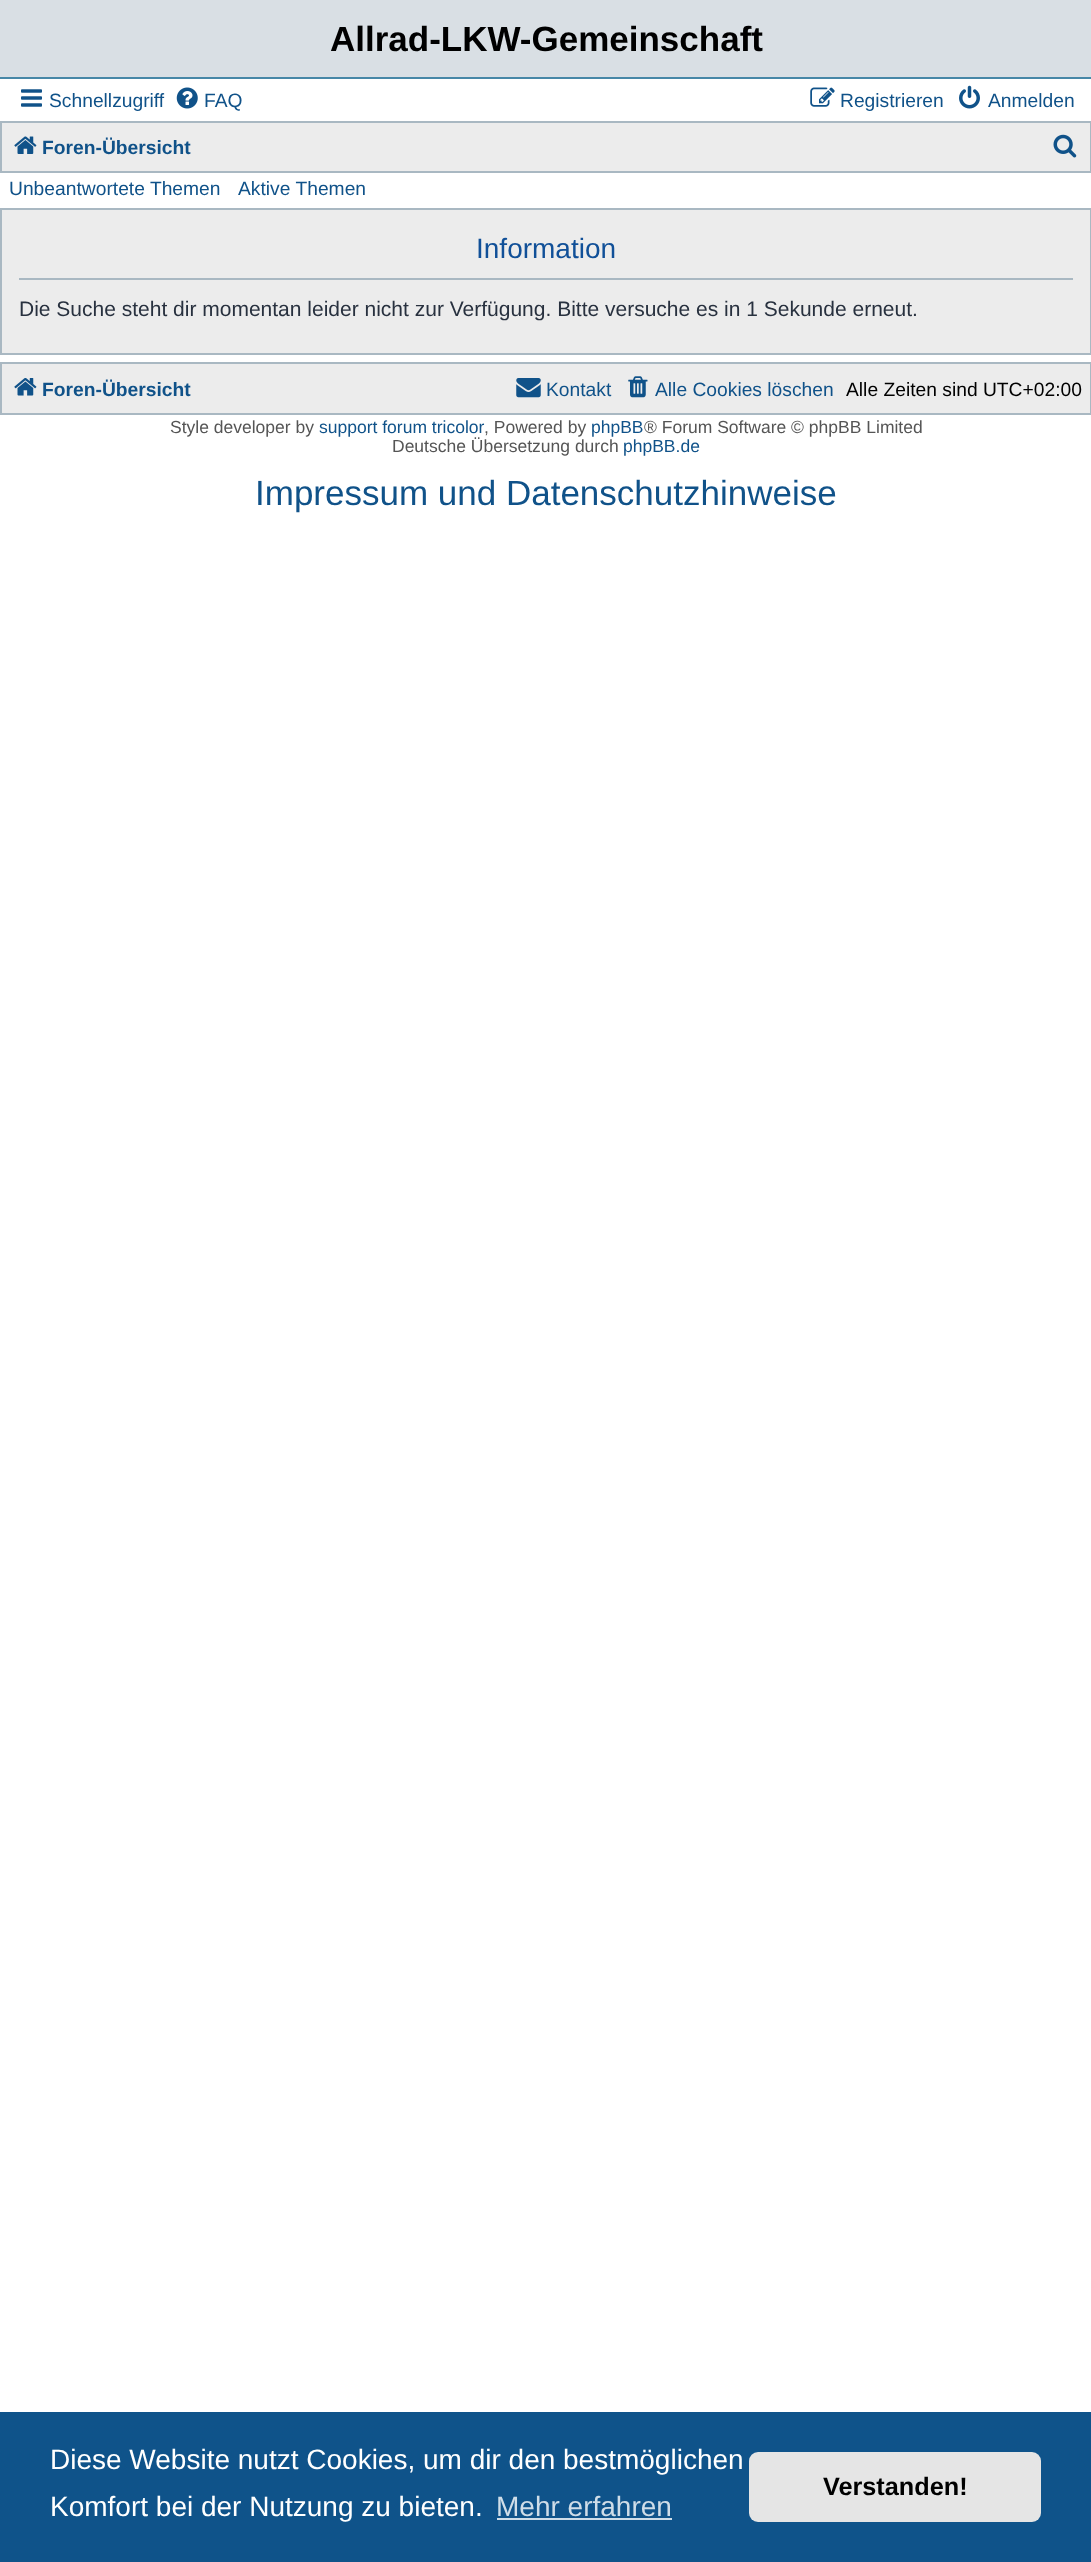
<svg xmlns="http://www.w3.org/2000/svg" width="1091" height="2562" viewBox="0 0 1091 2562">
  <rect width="100%" height="100%" fill="rgb(255,255,255)"/>
  <rect x="0" y="0" width="1091" height="77" fill="rgb(217,223,228)"/>
  <rect x="0" y="77" width="1091" height="2" fill="rgb(71,135,167)"/>
  <text x="330" y="51" font-family="Liberation Sans" font-size="35" font-weight="bold" fill="rgb(0,0,0)">Allrad-LKW-Gemeinschaft</text>
  <image x="21" y="89" width="21" height="18" href="pic1.png"/>
  <text x="49" y="107" font-family="Liberation Sans" font-size="19.25" fill="rgb(16,82,137)">Schnellzugriff</text>
  <image x="176" y="87" width="22" height="22" href="pic2.png"/>
  <text x="204" y="107" font-family="Liberation Sans" font-size="19.25" fill="rgb(16,82,137)">FAQ</text>
  <image x="810" y="87" width="25" height="20" href="pic3.png"/>
  <text x="840" y="107" font-family="Liberation Sans" font-size="19.25" fill="rgb(16,82,137)">Registrieren</text>
  <image x="959" y="85" width="21" height="24" href="pic4.png"/>
  <text x="988" y="107" font-family="Liberation Sans" font-size="19.25" fill="rgb(16,82,137)">Anmelden</text>
  <rect x="1" y="122" width="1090" height="50" fill="rgb(236,236,236)" stroke="rgb(169,184,194)" stroke-width="2"/>
  <image x="14" y="136" width="23" height="18" href="pic5.png"/>
  <text x="42" y="154" font-family="Liberation Sans" font-size="19.25" font-weight="bold" fill="rgb(16,82,137)">Foren-Übersicht</text>
  <image x="1053" y="134" width="24" height="24" href="pic6.png"/>
  <g font-family="Liberation Sans" font-size="19.25" fill="rgb(16,82,137)">
    <text x="9" y="195">Unbeantwortete Themen</text>
    <text x="238" y="195">Aktive Themen</text>
  </g>
  <rect x="1" y="209" width="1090" height="145" fill="rgb(236,236,236)" stroke="rgb(169,184,194)" stroke-width="2"/>
  <rect x="19" y="278" width="1054" height="2" fill="rgb(169,184,194)"/>
  <text x="476" y="258" font-family="Liberation Sans" font-size="28" fill="rgb(17,80,152)">Information</text>
  <text x="19" y="316" font-family="Liberation Sans" font-size="21" fill="rgb(40,49,63)">Die Suche steht dir momentan leider nicht zur Verfügung. Bitte versuche es in 1 Sekunde erneut.</text>
  <rect x="1" y="363" width="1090" height="51" fill="rgb(236,236,236)" stroke="rgb(169,184,194)" stroke-width="2"/>
  <image x="14" y="378" width="23" height="18" href="pic7.png"/>
  <text x="42" y="396" font-family="Liberation Sans" font-size="19.25" font-weight="bold" fill="rgb(16,82,137)">Foren-Übersicht</text>
  <image x="516" y="378" width="25" height="20" href="pic8.png"/>
  <text x="546" y="396" font-family="Liberation Sans" font-size="19.25" fill="rgb(16,82,137)">Kontakt</text>
  <image x="628" y="376" width="20" height="22" href="pic9.png"/>
  <text x="655" y="396" font-family="Liberation Sans" font-size="19.25" fill="rgb(16,82,137)">Alle Cookies löschen</text>
  <text x="846" y="396" font-family="Liberation Sans" font-size="19.25" fill="rgb(0,0,0)">Alle Zeiten sind UTC+02:00</text>
  <text x="170" y="433" font-family="Liberation Sans" font-size="17.5" fill="rgb(85,85,85)">Style developer by</text>
  <text x="319" y="433" font-family="Liberation Sans" font-size="17.5" fill="rgb(16,82,137)">support forum tricolor</text>
  <text x="484" y="433" font-family="Liberation Sans" font-size="17.5" fill="rgb(85,85,85)">, Powered by</text>
  <text x="591" y="433" font-family="Liberation Sans" font-size="17.5" fill="rgb(16,82,137)">phpBB</text>
  <g font-family="Liberation Sans" font-size="17.5" fill="rgb(85,85,85)">
    <text x="644" y="433">® Forum Software © phpBB Limited</text>
    <text x="392" y="452">Deutsche Übersetzung durch</text>
  </g>
  <text x="623" y="452" font-family="Liberation Sans" font-size="17.5" fill="rgb(16,82,137)">phpBB.de</text>
  <text x="255" y="505" font-family="Liberation Sans" font-size="35" fill="rgb(16,82,137)">Impressum und Datenschutzhinweise</text>
  <rect x="0" y="2412" width="1091" height="150" fill="rgb(15,83,138)"/>
  <g font-family="Liberation Sans" font-size="28" fill="rgb(255,255,255)">
    <text>
      <tspan x="50" y="2469">Diese Website nutzt Cookies, um dir den bestmöglichen</tspan>
      <tspan x="50" y="2516">Komfort bei der Nutzung zu bieten.</tspan>
    </text>
  </g>
  <text x="496" y="2516" font-family="Liberation Sans" font-size="28" fill="rgb(207,221,232)">Mehr erfahren</text>
  <rect x="497" y="2518" width="175" height="2" fill="rgb(207,221,232)"/>
  <rect x="749" y="2452" width="292" height="70" rx="9" fill="rgb(229,229,229)"/>
  <text x="823" y="2495" font-family="Liberation Sans" font-size="25.25" font-weight="bold" fill="rgb(0,0,0)">Verstanden!</text>
</svg>
